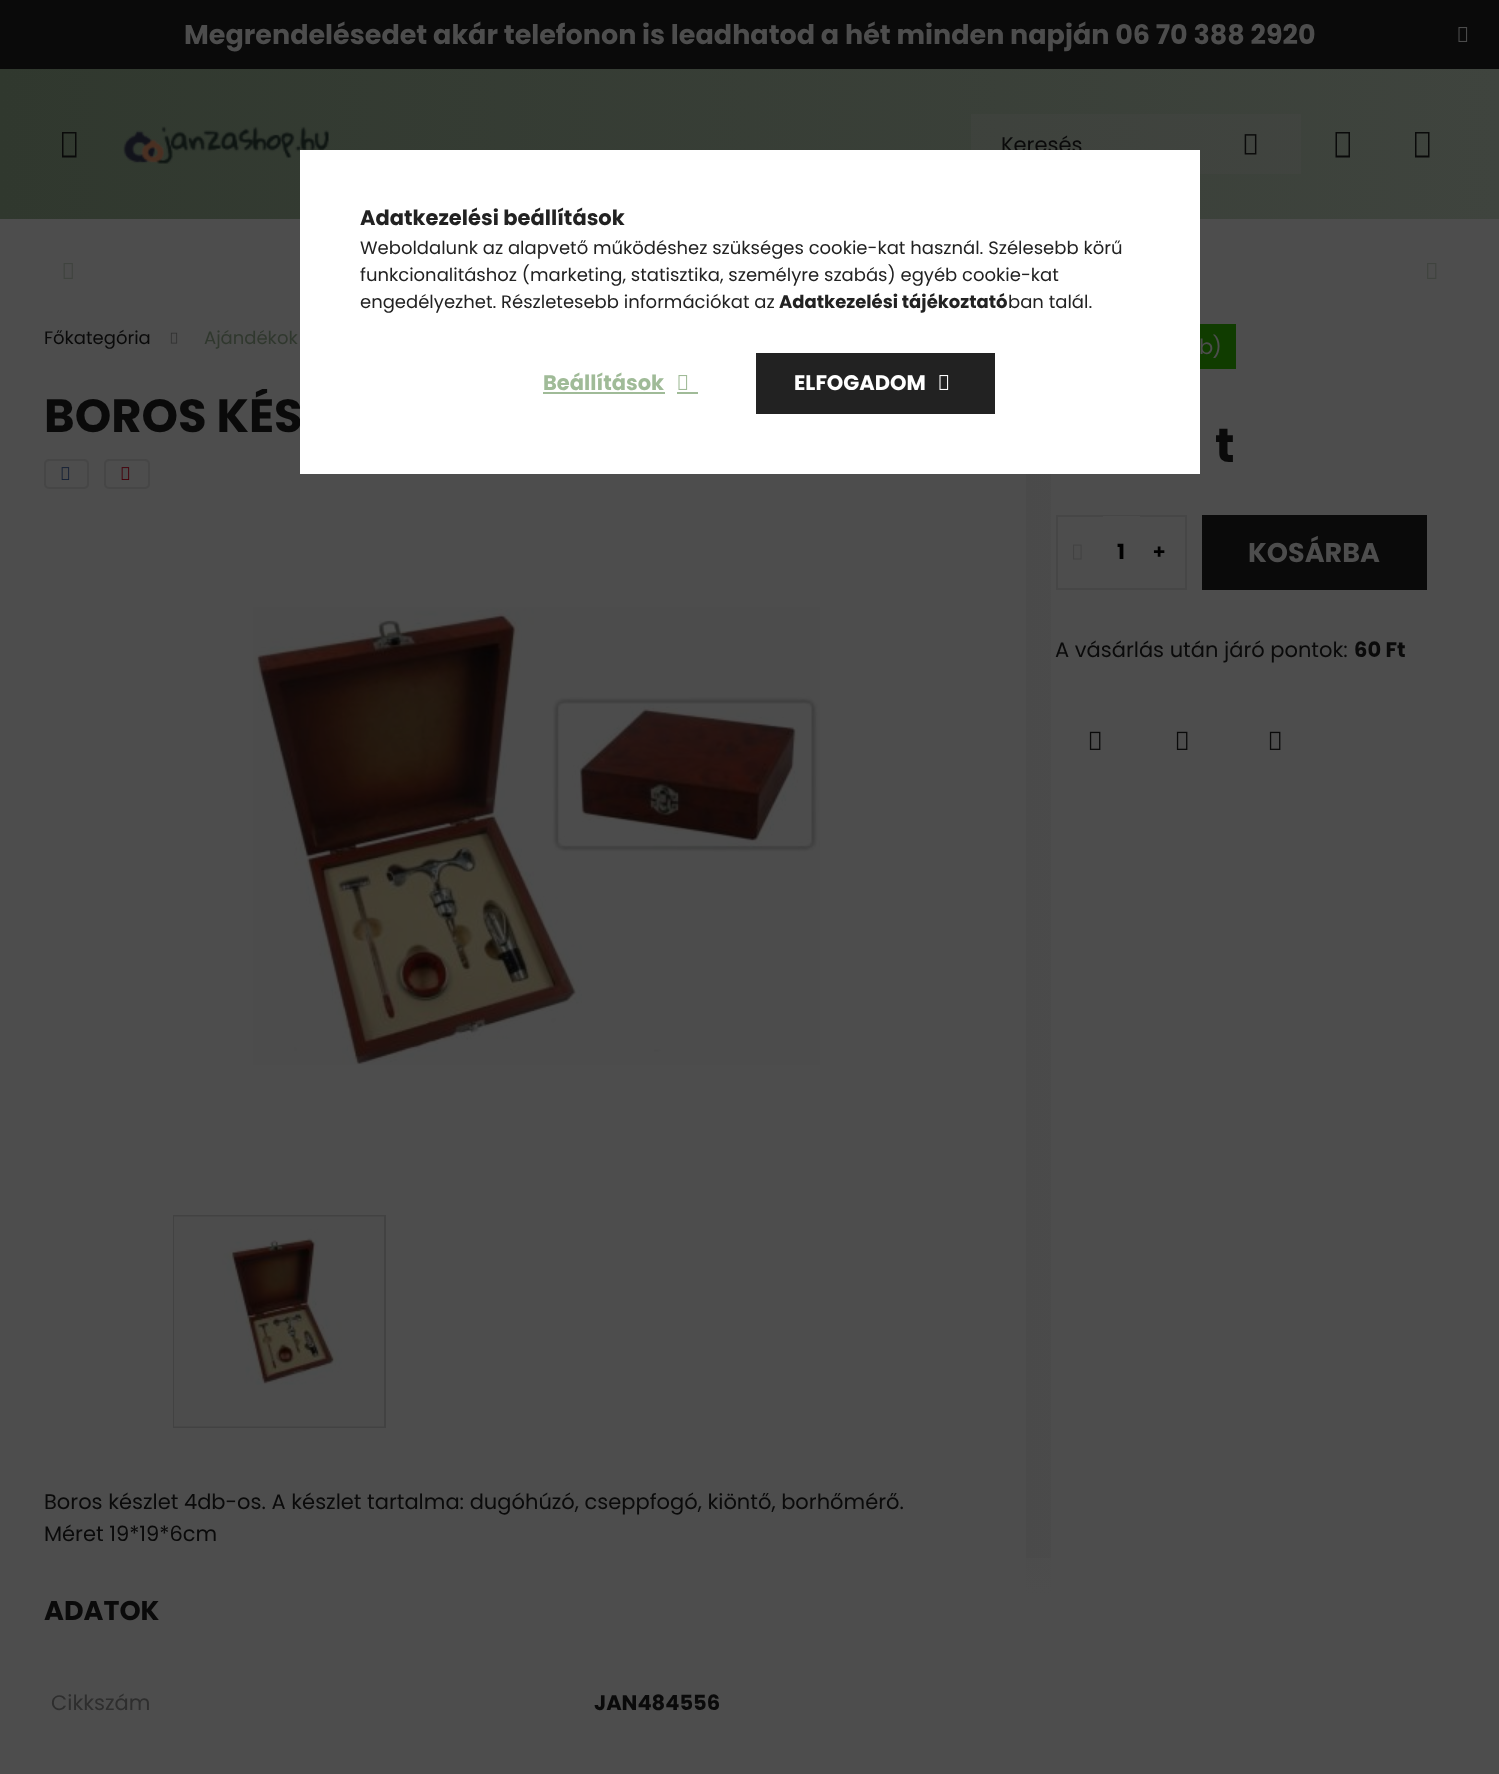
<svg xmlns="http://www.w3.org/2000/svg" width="1499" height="1774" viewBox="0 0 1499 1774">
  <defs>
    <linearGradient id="g1" gradientUnits="userSpaceOnUse" x1="0" y1="144" x2="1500" y2="144"><stop offset="0" stop-color="rgb(48,56,46)"/><stop offset="1" stop-color="rgb(63,68,62)"/></linearGradient>
    <linearGradient id="g2" gradientUnits="userSpaceOnUse" x1="0" y1="144" x2="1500" y2="144"><stop offset="0" stop-color="rgb(54,60,52)"/><stop offset="1" stop-color="rgb(66,69,65)"/></linearGradient>
    <clipPath id="clip1"><rect x="44" y="389" width="916" height="55"/></clipPath>
    <linearGradient id="g3" gradientUnits="userSpaceOnUse" x1="1026" y1="907" x2="1457" y2="907"><stop offset="0" stop-color="rgb(74,74,74)"/><stop offset="0.35" stop-color="rgb(77,77,77)"/><stop offset="1" stop-color="rgb(77,77,77)"/></linearGradient>
    <linearGradient id="g4" gradientUnits="userSpaceOnUse" x1="752" y1="552" x2="1427" y2="552"><stop offset="0" stop-color="rgb(48,56,46)"/><stop offset="0.33" stop-color="rgb(63,68,62)"/><stop offset="0.67" stop-color="rgb(10,10,10)"/><stop offset="1" stop-color="rgb(10,10,10)"/></linearGradient>
    <linearGradient id="g5" gradientUnits="userSpaceOnUse" x1="1241" y1="1595" x2="1241" y2="1475"><stop offset="0" stop-color="rgb(77,77,77)"/><stop offset="1" stop-color="rgb(77,77,77)" stop-opacity="0"/></linearGradient>
    <linearGradient id="g6" gradientUnits="userSpaceOnUse" x1="279" y1="383" x2="995" y2="383"><stop offset="0" stop-color="rgb(160,187,152)"/><stop offset="0.33" stop-color="rgb(211,225,207)"/><stop offset="0.67" stop-color="rgb(34,34,34)"/><stop offset="1" stop-color="rgb(34,34,34)"/></linearGradient>
  </defs>
  <rect width="100%" height="100%" fill="rgb(77,77,77)"/>
  <rect x="0" y="0" width="1499" height="69" fill="rgb(10,10,10)"/>
  <text x="184" y="44" font-family="Poppins" font-size="27" font-weight="bold" fill="rgb(77,77,77)">Megrendelésedet akár telefonon is leadhatod a hét minden napján 06 70 388 2920</text>
  <image x="1458" y="27" width="10" height="15" href="pic1.png"/>
  <rect x="0" y="69" width="1499" height="150" fill="url(#g1)"/>
  <rect x="971" y="114" width="330" height="60" fill="url(#g2)"/>
  <path d="M62 157.5V132H76.5V157.5ZM63.5 155.5H75V133.5H63.5Z" fill="rgb(10,10,10)"/>
  <image x="123" y="126" width="207" height="38" href="pic2.png"/>
  <text x="1001" y="152" font-family="Poppins" font-size="21" fill="rgb(10,10,10)">Keresés</text>
  <image x="1244" y="134" width="13" height="21" href="pic3.png"/>
  <path d="M1335.5 157.5V132H1350V157.5ZM1337 155.5H1348.5V133.5H1337Z" fill="rgb(10,10,10)"/>
  <path d="M1415 157.5V132H1429.5V157.5ZM1416.5 155.5H1428V133.5H1416.5Z" fill="rgb(10,10,10)"/>
  <image x="63" y="263" width="10" height="16" href="pic4.png"/>
  <image x="1427" y="263" width="10" height="16" href="pic5.png"/>
  <text x="44" y="344" font-family="Poppins" font-size="18" fill="rgb(10,10,10)">Főkategória</text>
  <image x="170" y="332" width="8" height="12" href="pic6.png"/>
  <text x="204" y="344" font-family="Poppins" font-size="18" fill="rgb(48,56,46)">Ajándékok</text>
  <g clip-path="url(#clip1)">
    <text x="44" y="432" font-family="Poppins" font-size="46.5" font-weight="bold" fill="rgb(10,10,10)">BOROS KÉS</text>
  </g>
  <rect x="45" y="460" width="43" height="28" rx="4" fill="none" stroke="rgb(70,70,70)" stroke-width="2"/>
  <image x="61" y="467" width="9" height="13" href="pic7.png"/>
  <rect x="105" y="460" width="44" height="28" rx="4" fill="none" stroke="rgb(70,70,70)" stroke-width="2"/>
  <image x="121" y="467" width="9" height="13" href="pic8.png"/>
  <image x="253" y="607" width="567" height="458" href="pic9.png"/>
  <rect x="174" y="1216" width="211" height="211" fill="none" stroke="rgb(66,66,66)" stroke-width="2"/>
  <image x="174" y="1216" width="210" height="211" href="pic10.png"/>
  <g font-family="Poppins" font-size="21" fill="rgb(10,10,10)">
    <text>
      <tspan x="44" y="1509">Boros készlet 4db-os. A készlet tartalma: dugóhúzó, cseppfogó, kiöntő, borhőmérő.</tspan>
      <tspan x="44" y="1541">Méret 19*19*6cm</tspan>
    </text>
  </g>
  <rect x="1026" y="219" width="25" height="1375" fill="url(#g3)"/>
  <rect x="1200" y="324" width="36" height="45" fill="rgb(16,60,0)"/>
  <text x="1199" y="354" font-family="Poppins" font-size="21" letter-spacing="-1" fill="rgb(77,77,77)">b)</text>
  <text x="1215" y="462" font-family="Poppins" font-size="48" font-weight="bold" letter-spacing="-2" fill="rgb(10,10,10)">t</text>
  <rect x="1057" y="516" width="129" height="73" fill="none" stroke="rgb(70,70,70)" stroke-width="2"/>
  <image x="1073" y="544" width="9" height="16" href="pic11.png"/>
  <rect x="1103" y="516" width="37" height="1" fill="rgb(77,77,77)"/>
  <text x="1117" y="559" font-family="Poppins" font-size="21" font-weight="bold" fill="rgb(0,0,0)">1</text>
  <text x="1153" y="559" font-family="Noto Sans" font-size="21" font-weight="900" fill="rgb(0,0,0)">+</text>
  <rect x="1202" y="515" width="225" height="75" fill="url(#g4)"/>
  <text x="1248" y="562" font-family="Poppins" font-size="27" font-weight="bold" fill="rgb(77,77,77)">KOSÁRBA</text>
  <text x="1055" y="657" font-family="Poppins" font-size="21" fill="rgb(10,10,10)">A vásárlás után járó pontok:</text>
  <text x="1354" y="657" font-family="Poppins" font-size="21" font-weight="bold" fill="rgb(10,10,10)">60 Ft</text>
  <image x="1089" y="731" width="12" height="19" href="pic12.png"/>
  <image x="1176" y="731" width="12" height="19" href="pic13.png"/>
  <image x="1269" y="731" width="12" height="19" href="pic13.png"/>
  <rect x="1026" y="1558" width="25" height="36" fill="url(#g5)"/>
  <text x="44" y="1620" font-family="Poppins" font-size="27" font-weight="bold" fill="rgb(10,10,10)">ADATOK</text>
  <text x="51" y="1710" font-family="Poppins" font-size="21" fill="rgb(46,46,46)">Cikkszám</text>
  <text x="594" y="1710" font-family="Poppins" font-size="21" font-weight="bold" fill="rgb(10,10,10)">JAN484556</text>
  <rect x="300" y="150" width="900" height="324" fill="rgb(255,255,255)"/>
  <text x="360" y="225" font-family="Poppins" font-size="21" font-weight="bold" fill="rgb(34,34,34)">Adatkezelési beállítások</text>
  <g font-family="Poppins" font-size="18" fill="rgb(34,34,34)">
    <text>
      <tspan x="360" y="254">Weboldalunk az alapvető működéshez szükséges cookie-kat használ. Szélesebb körű</tspan>
      <tspan x="360" y="281">funkcionalitáshoz (marketing, statisztika, személyre szabás) egyéb cookie-kat</tspan>
      <tspan x="360" y="308">engedélyezhet. Részletesebb információkat az</tspan>
    </text>
  </g>
  <text x="779" y="308" font-family="Poppins" font-size="18" font-weight="bold" fill="rgb(34,34,34)">Adatkezelési tájékoztató</text>
  <text x="1008" y="308" font-family="Poppins" font-size="18" fill="rgb(34,34,34)">ban talál.</text>
  <text x="543" y="390" font-family="Poppins" font-size="21" font-weight="bold" fill="rgb(160,187,152)">Beállítások</text>
  <rect x="543" y="392" width="122" height="2" fill="rgb(160,187,152)"/>
  <image x="678" y="375" width="10" height="15" href="pic14.png"/>
  <rect x="677" y="392" width="21" height="2" fill="rgb(160,187,152)"/>
  <rect x="756" y="353" width="239" height="61" fill="url(#g6)"/>
  <text x="794" y="390" font-family="Poppins" font-size="21" font-weight="bold" fill="rgb(255,255,255)">ELFOGADOM</text>
  <image x="939" y="375" width="10" height="15" href="pic15.png"/>
</svg>
